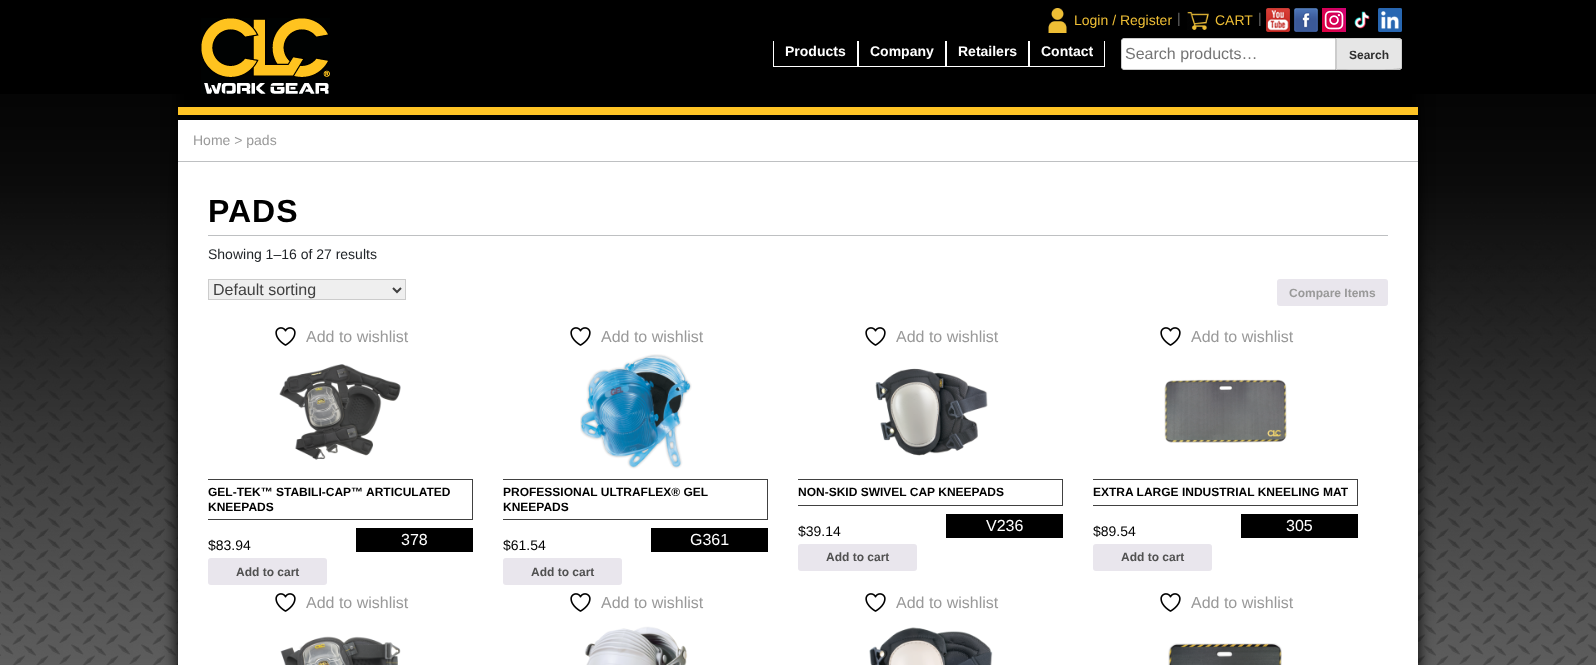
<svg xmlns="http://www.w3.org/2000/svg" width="1596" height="665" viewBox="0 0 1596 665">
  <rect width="100%" height="100%" fill="rgb(0,0,0)"/>
  <image x="0" y="94" width="1596" height="571" href="pic1.png"/>
  <rect x="178" y="0" width="1240" height="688" fill="rgb(0,0,0)" filter="blur(7.5px)"/>
  <rect x="178" y="120" width="1240" height="545" fill="rgb(255,255,255)"/>
  <rect x="178" y="115" width="1240" height="5" fill="rgb(0,0,0)"/>
  <rect x="178" y="107" width="1240" height="8" fill="rgb(255,196,37)"/>
  <image x="1048" y="8" width="19" height="25" href="pic2.png"/>
  <text x="1074" y="25" font-family="Liberation Sans" font-size="14" fill="rgb(238,190,53)">Login / Register</text>
  <text x="1177" y="23" font-family="Liberation Sans" font-size="14" fill="rgb(102,102,102)">|</text>
  <image x="1187" y="11" width="22" height="19" href="pic3.png"/>
  <text x="1215" y="25" font-family="Liberation Sans" font-size="14" fill="rgb(238,190,53)">CART</text>
  <text x="1258" y="23" font-family="Liberation Sans" font-size="14" fill="rgb(102,102,102)">|</text>
  <image x="1266" y="8" width="24" height="24" href="pic4.png"/>
  <image x="1294" y="8" width="24" height="24" href="pic5.png"/>
  <image x="1322" y="8" width="24" height="24" href="pic6.png"/>
  <image x="1354" y="11" width="16" height="18" href="pic7.png"/>
  <image x="1378" y="8" width="24" height="24" href="pic8.png"/>
  <image x="201" y="18" width="129" height="76" href="pic9.png"/>
  <rect x="857" y="41" width="1" height="26" fill="rgb(255,255,255)"/>
  <rect x="773" y="66" width="85" height="1" fill="rgb(255,255,255)"/>
  <rect x="773" y="41" width="1" height="26" fill="rgb(255,255,255)"/>
  <text x="785" y="56" font-family="Liberation Sans" font-size="14" font-weight="bold" fill="rgb(255,255,255)">Products</text>
  <rect x="945" y="41" width="1" height="26" fill="rgb(255,255,255)"/>
  <rect x="858" y="66" width="88" height="1" fill="rgb(255,255,255)"/>
  <rect x="858" y="41" width="1" height="26" fill="rgb(255,255,255)"/>
  <text x="870" y="56" font-family="Liberation Sans" font-size="14" font-weight="bold" fill="rgb(255,255,255)">Company</text>
  <rect x="1028" y="41" width="1" height="26" fill="rgb(255,255,255)"/>
  <rect x="946" y="66" width="83" height="1" fill="rgb(255,255,255)"/>
  <rect x="946" y="41" width="1" height="26" fill="rgb(255,255,255)"/>
  <text x="958" y="56" font-family="Liberation Sans" font-size="14" font-weight="bold" fill="rgb(255,255,255)">Retailers</text>
  <rect x="1104" y="41" width="1" height="26" fill="rgb(255,255,255)"/>
  <rect x="1029" y="66" width="76" height="1" fill="rgb(255,255,255)"/>
  <rect x="1029" y="41" width="1" height="26" fill="rgb(255,255,255)"/>
  <text x="1041" y="56" font-family="Liberation Sans" font-size="14" font-weight="bold" fill="rgb(255,255,255)">Contact</text>
  <path d="M1124 38.5H1335.5V69.5H1124C1122.5 69.5 1121.5 68.5 1121.5 67V41C1121.5 39.5 1122.5 38.5 1124 38.5Z" fill="rgb(255,255,255)" stroke="rgb(204,204,204)"/>
  <text x="1125" y="59" font-family="Liberation Sans" font-size="16" fill="rgb(117,117,117)">Search products…</text>
  <path d="M1336 38H1399C1400.5 38 1402 39.5 1402 41V67C1402 68.5 1400.5 70 1399 70H1336Z" fill="rgb(230,230,230)"/>
  <path d="M1336 38L1337 39C1344 39 1399 38 1400 40L1401 39L1399 38Z" fill="rgb(204,204,204)"/>
  <path d="M1402 67V41C1402 40 1402 39 1401 39L1400.5 39.5L1401 41V67L1400.5 68.5L1401 69C1402 69 1402 68 1402 67Z" fill="rgb(204,204,204)"/>
  <path d="M1399 70L1401 69L1400 68C1399 70 1344 69 1337 69L1336 70Z" fill="rgb(187,187,187)"/>
  <path d="M1336 38V70L1337 69V39Z" fill="rgb(204,204,204)"/>
  <text x="1349" y="59" font-family="Liberation Sans" font-size="12" font-weight="bold" fill="rgb(46,46,46)">Search</text>
  <rect x="178" y="161" width="1240" height="1" fill="rgb(190,192,194)"/>
  <text x="193" y="145" font-family="Liberation Sans" font-size="14" fill="rgb(153,153,153)">Home &gt; pads</text>
  <rect x="208" y="235" width="1180" height="1" fill="rgb(190,192,194)"/>
  <text x="208" y="222" font-family="Liberation Sans" font-size="32" font-weight="bold" letter-spacing="1" fill="rgb(0,0,0)">PADS</text>
  <text x="208" y="259" font-family="Liberation Sans" font-size="14" fill="rgb(33,37,41)">Showing 1–16 of 27 results</text>
  <rect x="208.5" y="279.5" width="197" height="20" fill="rgb(239,239,239)" stroke="rgb(204,204,204)"/>
  <path d="M393 288L397 292L401 288" fill="none" stroke="rgb(64,64,64)" stroke-width="2"/>
  <text x="213" y="295" font-family="Liberation Sans" font-size="16" fill="rgb(64,64,64)">Default sorting</text>
  <rect x="1277" y="279" width="111" height="27" rx="3" fill="rgb(233,230,237)"/>
  <text x="1289" y="297" font-family="Liberation Sans" font-size="12" font-weight="bold" fill="rgb(153,153,153)">Compare Items</text>
  <image x="275" y="327" width="21" height="19" href="pic10.png"/>
  <text x="306" y="342" font-family="Liberation Sans" font-size="16" fill="rgb(153,153,153)">Add to wishlist</text>
  <image x="279" y="364" width="122" height="96" href="pic11.png"/>
  <rect x="208" y="479" width="265" height="1" fill="rgb(65,65,65)"/>
  <rect x="472" y="479" width="1" height="41" fill="rgb(65,65,65)"/>
  <rect x="208" y="519" width="265" height="1" fill="rgb(65,65,65)"/>
  <g font-family="Liberation Sans" font-size="12" font-weight="bold" fill="rgb(0,0,0)">
    <text>
      <tspan x="208" y="496">GEL-TEK™ STABILI-CAP™ ARTICULATED</tspan>
      <tspan x="208" y="511">KNEEPADS</tspan>
    </text>
  </g>
  <text x="208" y="550" font-family="Liberation Sans" font-size="14" fill="rgb(0,0,0)">$83.94</text>
  <rect x="356" y="528" width="117" height="24" fill="rgb(0,0,0)"/>
  <text x="401" y="545" font-family="Liberation Sans" font-size="16" fill="rgb(255,255,255)">378</text>
  <rect x="208" y="558" width="119" height="27" rx="3" fill="rgb(233,230,237)"/>
  <text x="236" y="576" font-family="Liberation Sans" font-size="12" font-weight="bold" fill="rgb(81,81,81)">Add to cart</text>
  <image x="570" y="327" width="21" height="19" href="pic10.png"/>
  <text x="601" y="342" font-family="Liberation Sans" font-size="16" fill="rgb(153,153,153)">Add to wishlist</text>
  <image x="580" y="354" width="112" height="115" href="pic12.png"/>
  <rect x="503" y="479" width="265" height="1" fill="rgb(65,65,65)"/>
  <rect x="767" y="479" width="1" height="41" fill="rgb(65,65,65)"/>
  <rect x="503" y="519" width="265" height="1" fill="rgb(65,65,65)"/>
  <g font-family="Liberation Sans" font-size="12" font-weight="bold" fill="rgb(0,0,0)">
    <text>
      <tspan x="503" y="496">PROFESSIONAL ULTRAFLEX® GEL</tspan>
      <tspan x="503" y="511">KNEEPADS</tspan>
    </text>
  </g>
  <text x="503" y="550" font-family="Liberation Sans" font-size="14" fill="rgb(0,0,0)">$61.54</text>
  <rect x="651" y="528" width="117" height="24" fill="rgb(0,0,0)"/>
  <text x="690" y="545" font-family="Liberation Sans" font-size="16" fill="rgb(255,255,255)">G361</text>
  <rect x="503" y="558" width="119" height="27" rx="3" fill="rgb(233,230,237)"/>
  <text x="531" y="576" font-family="Liberation Sans" font-size="12" font-weight="bold" fill="rgb(81,81,81)">Add to cart</text>
  <image x="865" y="327" width="21" height="19" href="pic10.png"/>
  <text x="896" y="342" font-family="Liberation Sans" font-size="16" fill="rgb(153,153,153)">Add to wishlist</text>
  <image x="875" y="368" width="113" height="88" href="pic13.png"/>
  <rect x="798" y="479" width="265" height="1" fill="rgb(65,65,65)"/>
  <rect x="1062" y="479" width="1" height="27" fill="rgb(65,65,65)"/>
  <rect x="798" y="505" width="265" height="1" fill="rgb(65,65,65)"/>
  <text x="798" y="496" font-family="Liberation Sans" font-size="12" font-weight="bold" fill="rgb(0,0,0)">NON-SKID SWIVEL CAP KNEEPADS</text>
  <text x="798" y="536" font-family="Liberation Sans" font-size="14" fill="rgb(0,0,0)">$39.14</text>
  <rect x="946" y="514" width="117" height="24" fill="rgb(0,0,0)"/>
  <text x="986" y="531" font-family="Liberation Sans" font-size="16" fill="rgb(255,255,255)">V236</text>
  <rect x="798" y="544" width="119" height="27" rx="3" fill="rgb(233,230,237)"/>
  <text x="826" y="561" font-family="Liberation Sans" font-size="12" font-weight="bold" fill="rgb(81,81,81)">Add to cart</text>
  <image x="1160" y="327" width="21" height="19" href="pic10.png"/>
  <text x="1191" y="342" font-family="Liberation Sans" font-size="16" fill="rgb(153,153,153)">Add to wishlist</text>
  <image x="1164" y="379" width="123" height="64" href="pic14.png"/>
  <rect x="1093" y="479" width="265" height="1" fill="rgb(65,65,65)"/>
  <rect x="1357" y="479" width="1" height="27" fill="rgb(65,65,65)"/>
  <rect x="1093" y="505" width="265" height="1" fill="rgb(65,65,65)"/>
  <text x="1093" y="496" font-family="Liberation Sans" font-size="12" font-weight="bold" fill="rgb(0,0,0)">EXTRA LARGE INDUSTRIAL KNEELING MAT</text>
  <text x="1093" y="536" font-family="Liberation Sans" font-size="14" fill="rgb(0,0,0)">$89.54</text>
  <rect x="1241" y="514" width="117" height="24" fill="rgb(0,0,0)"/>
  <text x="1286" y="531" font-family="Liberation Sans" font-size="16" fill="rgb(255,255,255)">305</text>
  <rect x="1093" y="544" width="119" height="27" rx="3" fill="rgb(233,230,237)"/>
  <text x="1121" y="561" font-family="Liberation Sans" font-size="12" font-weight="bold" fill="rgb(81,81,81)">Add to cart</text>
  <image x="275" y="593" width="21" height="19" href="pic10.png"/>
  <text x="306" y="608" font-family="Liberation Sans" font-size="16" fill="rgb(153,153,153)">Add to wishlist</text>
  <image x="280" y="636" width="121" height="29" href="pic15.png"/>
  <image x="570" y="593" width="21" height="19" href="pic10.png"/>
  <text x="601" y="608" font-family="Liberation Sans" font-size="16" fill="rgb(153,153,153)">Add to wishlist</text>
  <image x="584" y="626" width="104" height="39" href="pic16.png"/>
  <image x="865" y="593" width="21" height="19" href="pic10.png"/>
  <text x="896" y="608" font-family="Liberation Sans" font-size="16" fill="rgb(153,153,153)">Add to wishlist</text>
  <image x="869" y="627" width="124" height="38" href="pic17.png"/>
  <image x="1160" y="593" width="21" height="19" href="pic10.png"/>
  <text x="1191" y="608" font-family="Liberation Sans" font-size="16" fill="rgb(153,153,153)">Add to wishlist</text>
  <image x="1168" y="643" width="114" height="22" href="pic18.png"/>
</svg>
